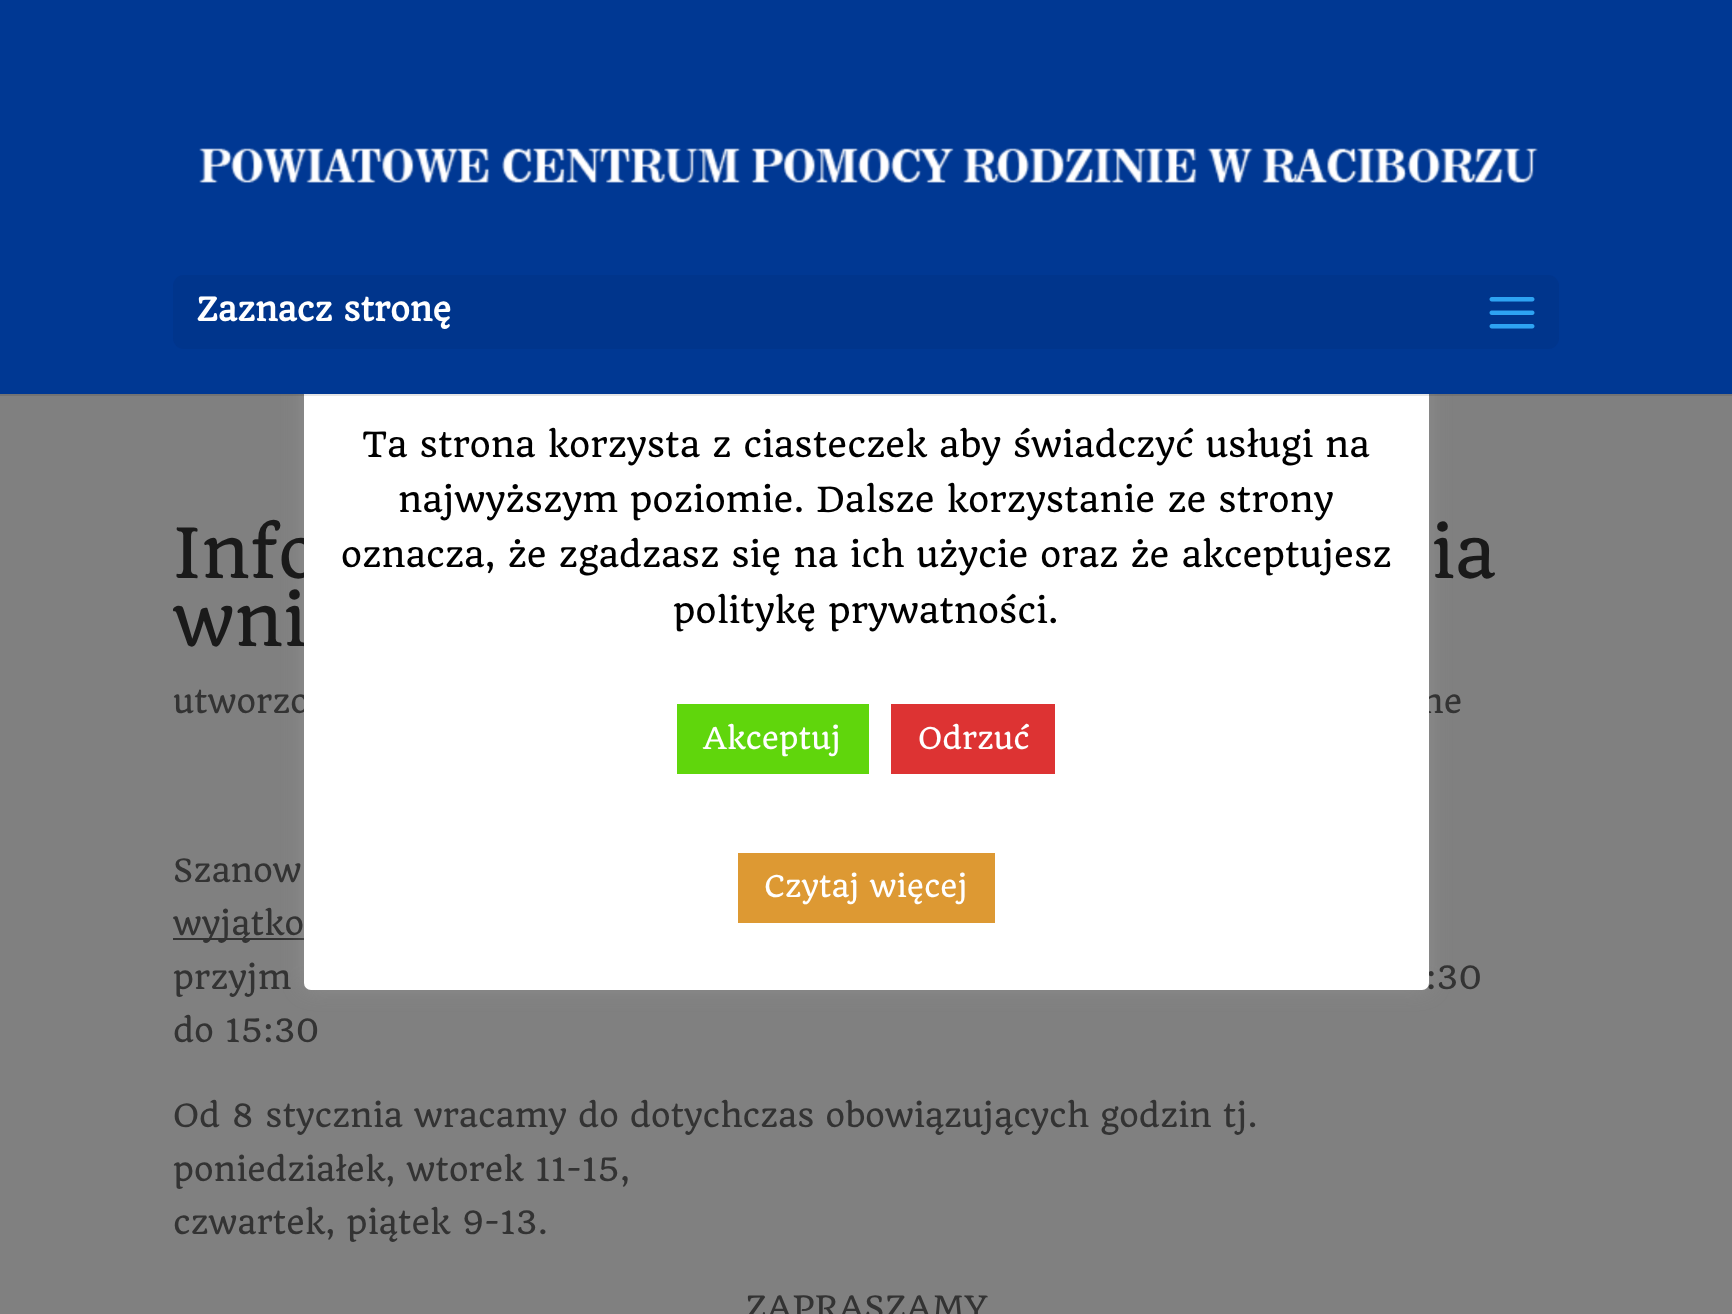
<svg xmlns="http://www.w3.org/2000/svg" width="1732" height="1314" viewBox="0 0 1732 1314">
  <rect width="100%" height="100%" fill="rgb(128,128,128)"/>
  <rect x="173" y="938" width="131" height="2" fill="rgb(51,51,51)"/>
  <rect x="304" y="302" width="1125" height="686" rx="7" fill="rgba(172,171,171,0.3)" filter="blur(11px)"/>
  <g font-family="Quando" font-size="67.5" fill="rgb(26,26,26)">
    <text>
      <tspan x="173" y="578">Info</tspan>
      <tspan x="173" y="646">wni</tspan>
    </text>
  </g>
  <g font-family="Quando" font-size="31.5" fill="rgb(51,51,51)">
    <text x="173" y="713">utworzo</text>
    <text x="1421" y="713">ne</text>
    <text x="1426" y="989">:30</text>
  </g>
  <rect x="304" y="304" width="1125" height="686" rx="7" fill="rgb(255,255,255)"/>
  <path d="M0 394V396H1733V2H1732V394Z" fill="rgba(0,0,0,0.1)"/>
  <rect x="0" y="0" width="1732" height="394" fill="rgb(0,56,147)"/>
  <image x="199" y="148" width="1339" height="35" href="pic1.png"/>
  <rect x="173" y="275" width="1386" height="74" rx="11" fill="rgb(0,53,140)"/>
  <text x="196" y="321" font-family="Quando" font-size="31.5" font-weight="bold" fill="rgb(255,255,255)">Zaznacz stronę</text>
  <image x="1489" y="297" width="46" height="32" href="pic2.png"/>
  <text x="1431" y="578" font-family="Quando" font-size="67.5" fill="rgb(26,26,26)">ia</text>
  <g font-family="Quando" font-size="31.5" fill="rgb(51,51,51)">
    <text>
      <tspan x="173" y="882">Szanow</tspan>
      <tspan x="173" y="935">wyjątko</tspan>
      <tspan x="173" y="989">przyjm</tspan>
      <tspan x="173" y="1042">do 15:30</tspan>
    </text>
    <text>
      <tspan x="173" y="1127">Od 8 stycznia wracamy do dotychczas obowiązujących godzin tj.</tspan>
      <tspan x="173" y="1181">poniedziałek, wtorek 11-15,</tspan>
      <tspan x="173" y="1234">czwartek, piątek 9-13.</tspan>
    </text>
    <text x="745" y="1319">ZAPRASZAMY</text>
  </g>
  <g font-family="Quando" font-size="33.75" fill="rgb(0,0,0)">
    <text x="362" y="457">Ta strona korzysta z ciasteczek aby świadczyć usługi na</text>
    <text x="398" y="512">najwyższym poziomie. Dalsze korzystanie ze strony</text>
    <text x="341" y="567">oznacza, że zgadzasz się na ich użycie oraz że akceptujesz</text>
    <text x="673" y="623">politykę prywatności.</text>
  </g>
  <rect x="677" y="704" width="192" height="70" fill="rgb(96,214,12)"/>
  <text x="703" y="749" font-family="Quando" font-size="29.25" fill="rgb(255,255,255)">Akceptuj</text>
  <rect x="891" y="704" width="164" height="70" fill="rgb(221,51,51)"/>
  <text x="918" y="749" font-family="Quando" font-size="29.25" fill="rgb(255,255,255)">Odrzuć</text>
  <rect x="738" y="853" width="257" height="70" fill="rgb(221,153,51)"/>
  <text x="764" y="897" font-family="Quando" font-size="29.25" fill="rgb(255,255,255)">Czytaj więcej</text>
</svg>
